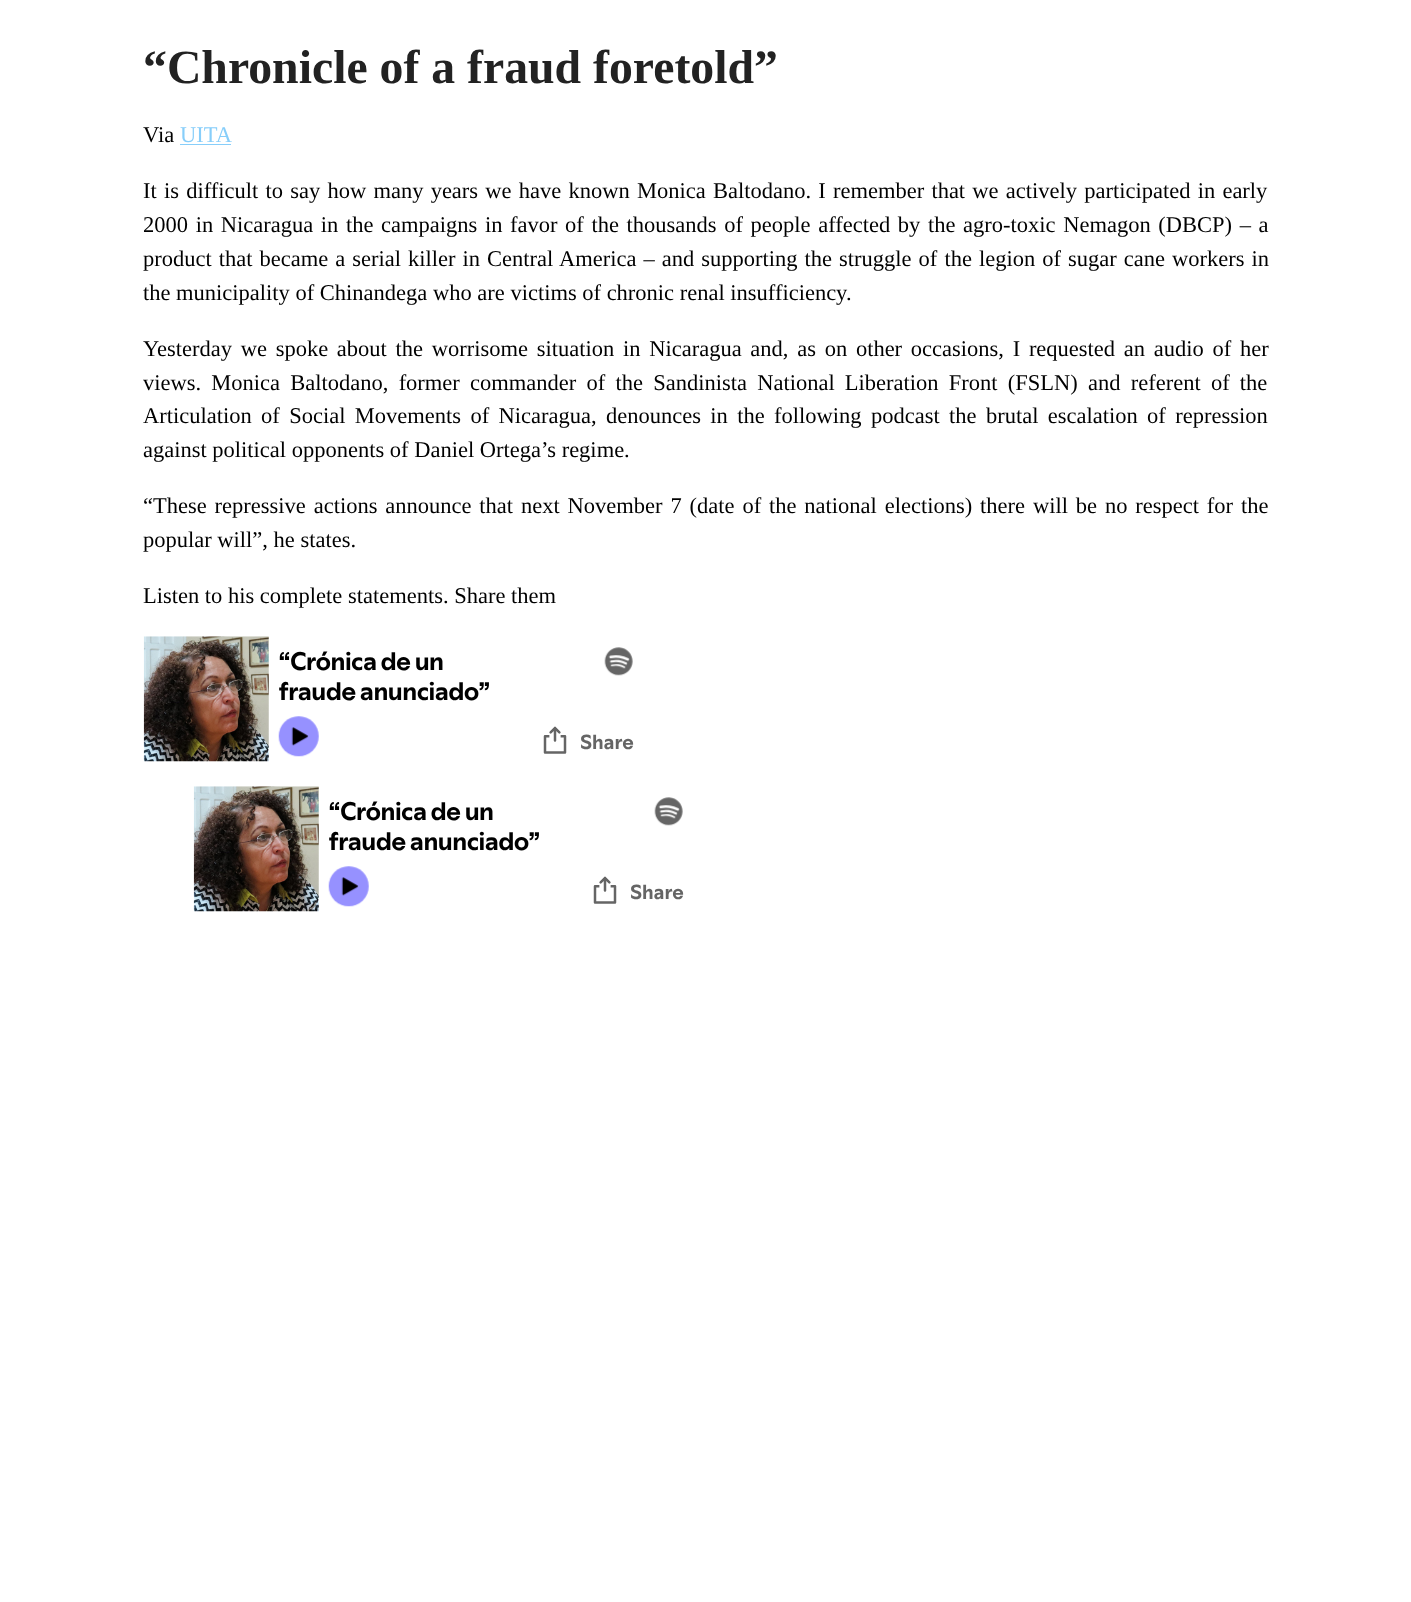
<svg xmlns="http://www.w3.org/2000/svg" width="1411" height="1602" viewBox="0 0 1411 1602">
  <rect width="100%" height="100%" fill="rgb(255,255,255)"/>
  <text x="143" y="83" font-family="Liberation Serif" font-size="47.75" font-weight="bold" fill="rgb(34,34,34)">“Chronicle of a fraud foretold”</text>
  <text x="143" y="142" font-family="Liberation Serif" font-size="22.5" fill="rgb(0,0,0)">Via</text>
  <text x="180" y="142" font-family="Liberation Serif" font-size="22.5" fill="rgb(135,206,250)">UITA</text>
  <rect x="180" y="144" width="51" height="1" fill="rgb(135,206,250)"/>
  <g font-family="Liberation Serif" font-size="22.5" fill="rgb(0,0,0)">
    <text>
      <tspan x="143" y="198" word-spacing="1.6">It is difficult to say how many years we have known Monica Baltodano. I remember that we actively participated in early</tspan>
      <tspan x="143" y="232" word-spacing="2">2000 in Nicaragua in the campaigns in favor of the thousands of people affected by the agro-toxic Nemagon (DBCP) – a</tspan>
      <tspan x="143" y="266" word-spacing="1.4">product that became a serial killer in Central America – and supporting the struggle of the legion of sugar cane workers in</tspan>
      <tspan x="143" y="300">the municipality of Chinandega who are victims of chronic renal insufficiency.</tspan>
    </text>
    <text>
      <tspan x="143" y="356" word-spacing="3.1">Yesterday we spoke about the worrisome situation in Nicaragua and, as on other occasions, I requested an audio of her</tspan>
      <tspan x="143" y="390" word-spacing="4.6">views. Monica Baltodano, former commander of the Sandinista National Liberation Front (FSLN) and referent of the</tspan>
      <tspan x="143" y="423" word-spacing="3.75">Articulation of Social Movements of Nicaragua, denounces in the following podcast the brutal escalation of repression</tspan>
      <tspan x="143" y="457">against political opponents of Daniel Ortega’s regime.</tspan>
    </text>
    <text>
      <tspan x="143" y="513" word-spacing="2.25">“These repressive actions announce that next November 7 (date of the national elections) there will be no respect for the</tspan>
      <tspan x="143" y="547">popular will”, he states.</tspan>
    </text>
    <text x="143" y="603">Listen to his complete statements. Share them</text>
  </g>
  <image x="143" y="636" width="491" height="126" href="pic1.png"/>
  <image x="193" y="786" width="491" height="126" href="pic2.png"/>
</svg>
